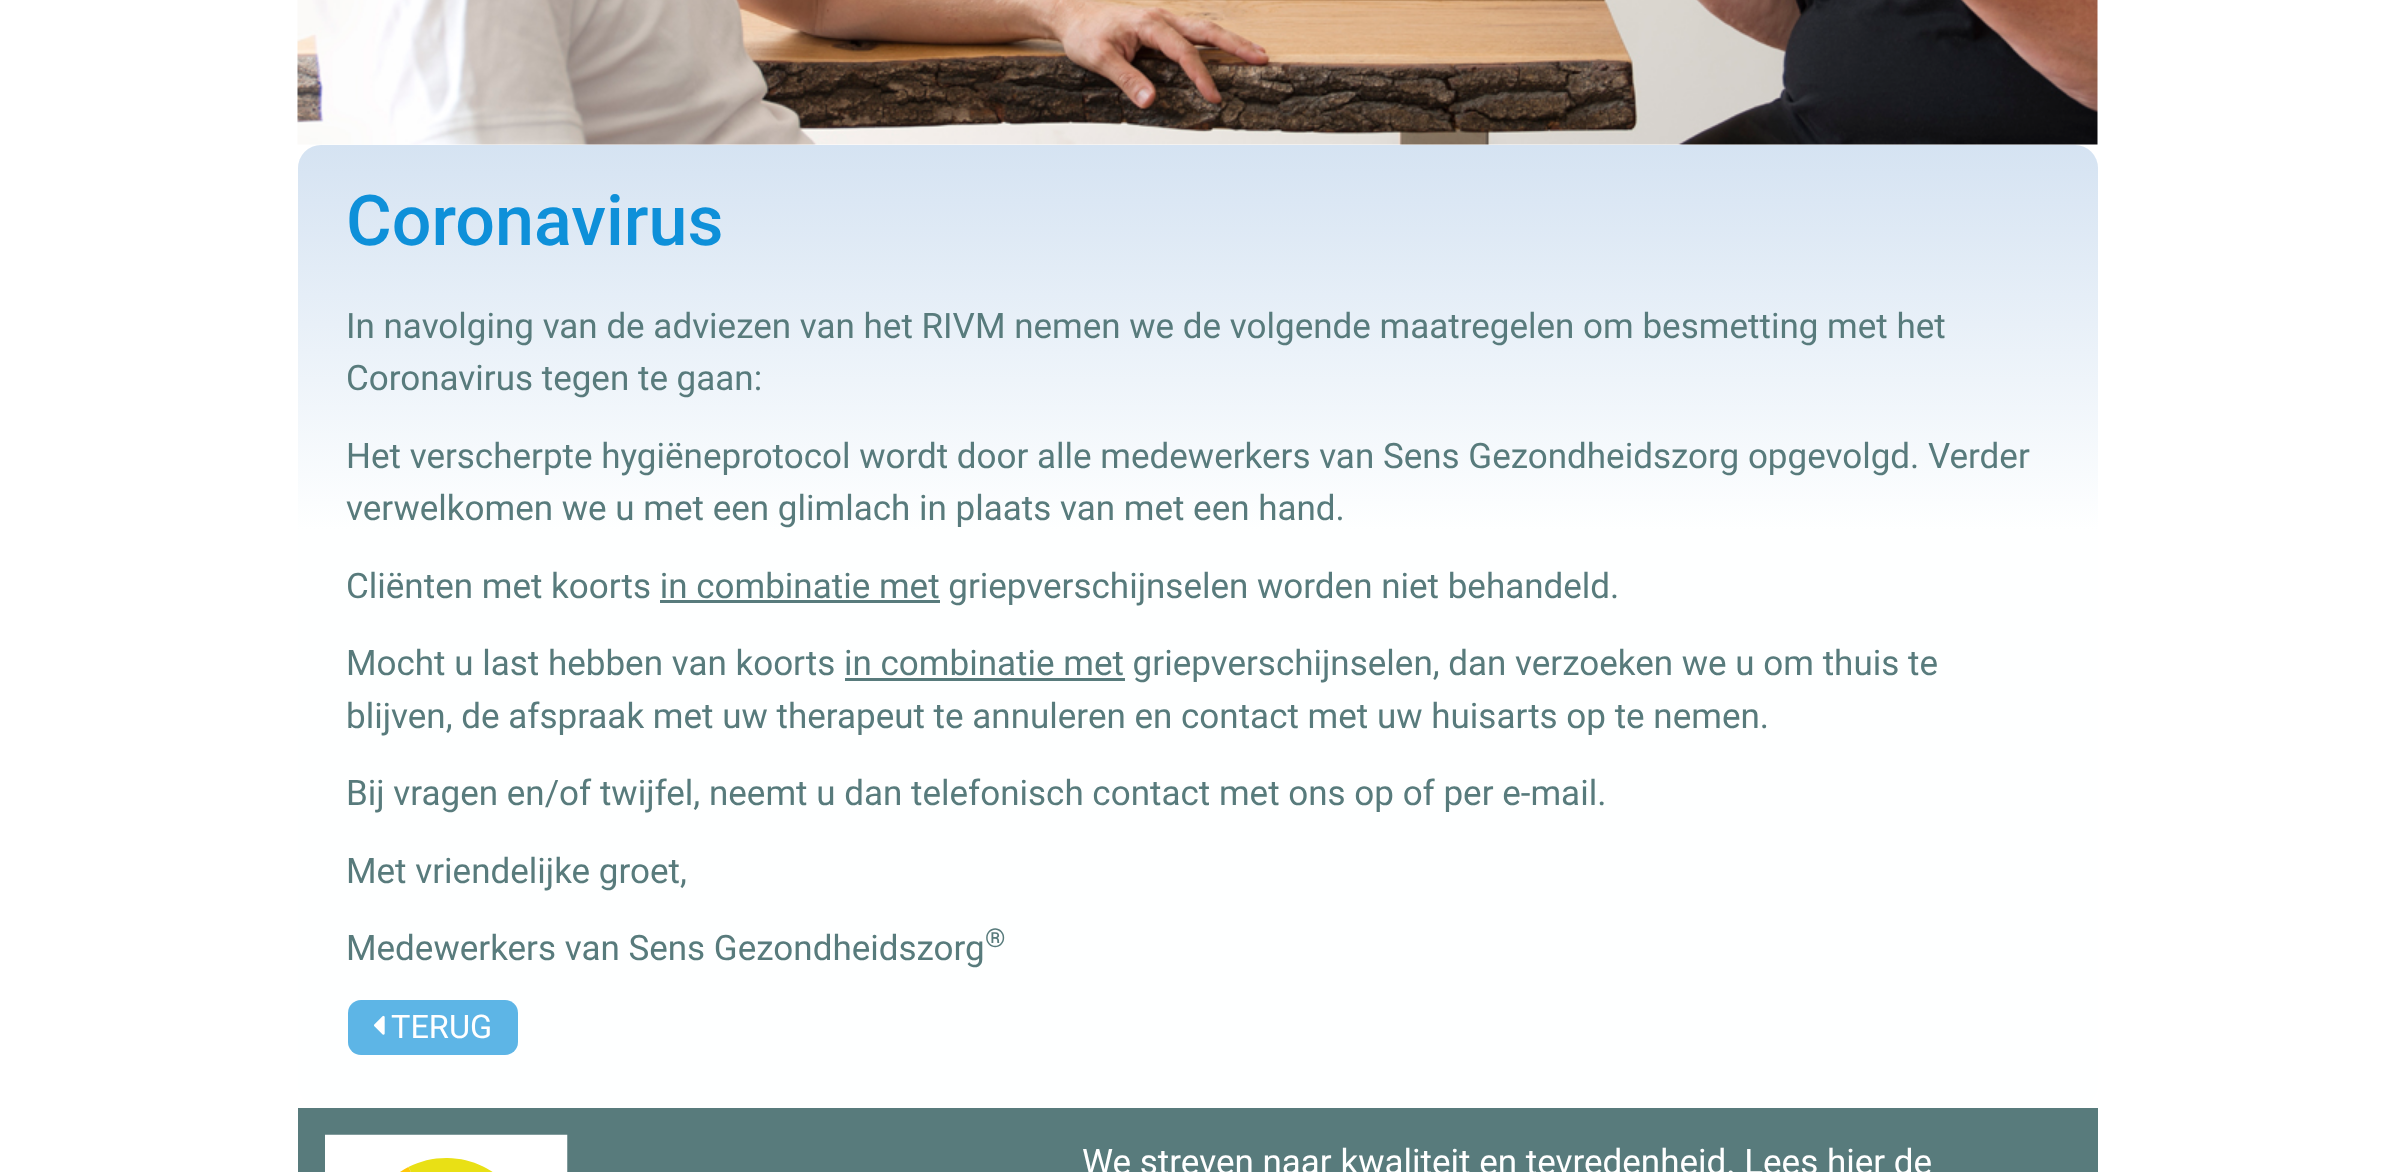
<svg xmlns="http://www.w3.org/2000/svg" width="2392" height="1172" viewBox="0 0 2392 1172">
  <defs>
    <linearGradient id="g1" gradientUnits="userSpaceOnUse" x1="1198" y1="145" x2="1198" y2="1108"><stop offset="0" stop-color="rgb(213,227,242)"/><stop offset="0.4" stop-color="rgb(254,255,255)"/></linearGradient>
  </defs>
  <rect width="100%" height="100%" fill="rgb(255,255,255)"/>
  <image x="297" y="0" width="1801" height="145" href="pic1.png"/>
  <rect x="298" y="145" width="1800" height="963" rx="23" fill="url(#g1)"/>
  <text x="346" y="245" font-family="Roboto" font-size="70" font-weight="500" fill="rgb(14,144,217)">Coronavirus</text>
  <g font-family="Roboto" font-size="35" fill="rgb(88,123,124)">
    <text>
      <tspan x="346" y="338">In navolging van de adviezen van het RIVM nemen we de volgende maatregelen om besmetting met het</tspan>
      <tspan x="346" y="390">Coronavirus tegen te gaan:</tspan>
    </text>
    <text>
      <tspan x="346" y="468">Het verscherpte hygiëneprotocol wordt door alle medewerkers van Sens Gezondheidszorg opgevolgd. Verder</tspan>
      <tspan x="346" y="520">verwelkomen we u met een glimlach in plaats van met een hand.</tspan>
    </text>
    <text x="346" y="598">Cliënten met koorts in combinatie met griepverschijnselen worden niet behandeld.</text>
  </g>
  <rect x="660" y="600" width="280" height="3" fill="rgb(88,123,124)"/>
  <text x="346" y="675" font-family="Roboto" font-size="35" fill="rgb(88,123,124)">Mocht u last hebben van koorts in combinatie met griepverschijnselen, dan verzoeken we u om thuis te</text>
  <rect x="845" y="678" width="280" height="3" fill="rgb(88,123,124)"/>
  <g font-family="Roboto" font-size="35" fill="rgb(88,123,124)">
    <text x="346" y="728">blijven, de afspraak met uw therapeut te annuleren en contact met uw huisarts op te nemen.</text>
    <text x="346" y="805">Bij vragen en/of twijfel, neemt u dan telefonisch contact met ons op of per e-mail.</text>
    <text x="346" y="883">Met vriendelijke groet,</text>
    <text x="346" y="960">Medewerkers van Sens Gezondheidszorg</text>
  </g>
  <text x="985" y="947" font-family="Roboto" font-size="26" fill="rgb(88,123,124)">®</text>
  <rect x="348" y="1000" width="170" height="55" rx="13" fill="rgb(93,181,230)"/>
  <image x="374" y="1015" width="11" height="20" href="pic2.png"/>
  <text x="391" y="1038" font-family="Roboto" font-size="32.5" fill="rgb(255,255,255)">TERUG</text>
  <rect x="298" y="1108" width="1800" height="64" fill="rgb(88,123,124)"/>
  <image x="325" y="1134" width="243" height="38" href="pic3.png"/>
  <text x="1082" y="1174" font-family="Roboto" font-size="35" fill="rgb(255,255,255)">We streven naar kwaliteit en tevredenheid. Lees hier de</text>
</svg>
